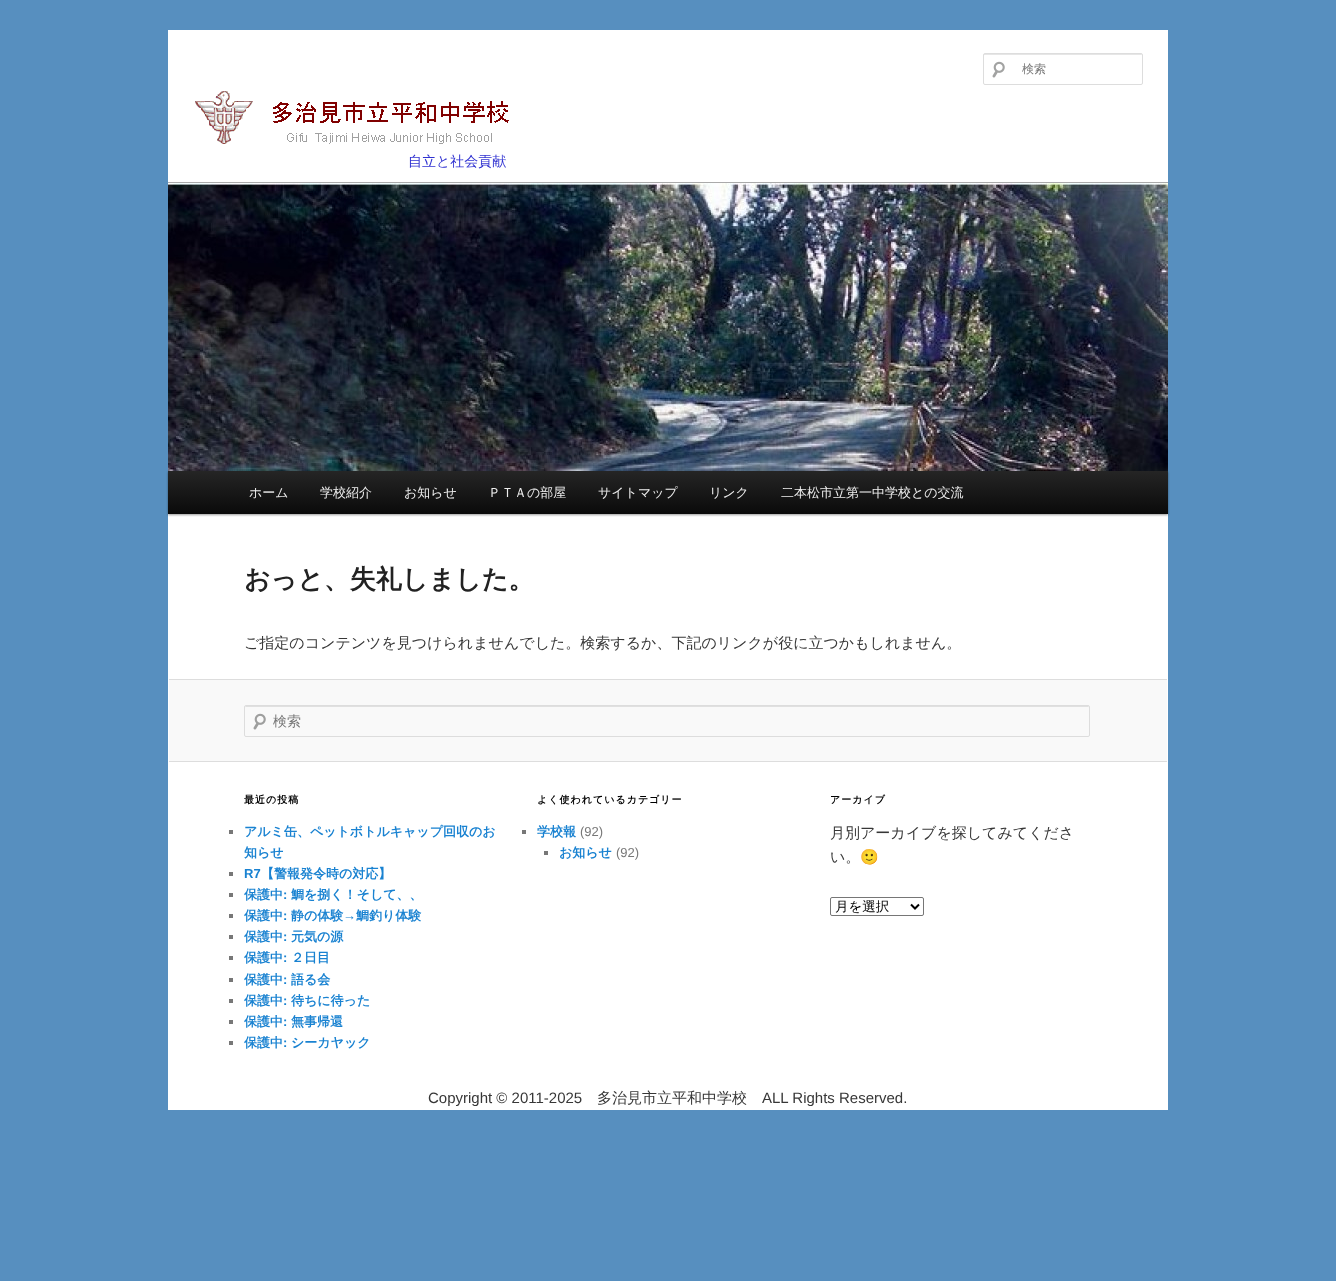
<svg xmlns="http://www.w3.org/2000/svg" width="1336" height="1281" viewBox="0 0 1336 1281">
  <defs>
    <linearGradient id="g1" gradientUnits="userSpaceOnUse" x1="668" y1="471" x2="668" y2="514"><stop offset="0" stop-color="rgb(37,37,37)"/><stop offset="1" stop-color="rgb(10,10,10)"/></linearGradient>
  </defs>
  <rect width="100%" height="100%" fill="rgb(87,143,191)"/>
  <rect x="168" y="30" width="1000" height="1080" fill="rgb(255,255,255)"/>
  <image x="992" y="61" width="13" height="17" href="pic1.png"/>
  <path d="M985 55H1141C1142 55 1142 55 1142 56C1142 55 1142 54 1141 54H984V56C984 55 984 55 985 55Z" fill="rgb(230,230,230)"/>
  <rect x="983.5" y="53.5" width="159" height="31" rx="1.5" fill="none" stroke="rgb(221,221,221)"/>
  <text x="1022" y="73" font-family="WenQuanYi Zen Hei" font-size="12" font-weight="500" fill="rgb(119,119,119)">検索</text>
  <image x="195" y="91" width="314" height="53" href="pic2.png"/>
  <text x="408" y="166" font-family="WenQuanYi Zen Hei" font-size="14" font-weight="500" fill="rgb(48,50,209)">自立と社会貢献</text>
  <rect x="168" y="182" width="1000" height="1" fill="rgb(170,170,170)"/>
  <rect x="168" y="472" width="1000" height="43" fill="rgba(0,0,0,0.4)" filter="blur(1px)"/>
  <image x="168" y="183" width="1000" height="288" href="pic3.png"/>
  <rect x="168" y="471" width="1000" height="43" fill="url(#g1)"/>
  <g font-family="WenQuanYi Zen Hei" font-size="13" font-weight="500" fill="rgb(238,238,238)">
    <text x="249" y="497">ホーム</text>
    <text x="320" y="497">学校紹介</text>
    <text x="404" y="497">お知らせ</text>
    <text x="488" y="497">ＰＴＡの部屋</text>
    <text x="598" y="497">サイトマップ</text>
    <text x="709" y="497">リンク</text>
    <text x="781" y="497">二本松市立第一中学校との交流</text>
  </g>
  <text x="244" y="588" font-family="WenQuanYi Zen Hei" font-size="26" font-weight="bold" fill="rgb(34,34,34)">おっと、失礼しました。</text>
  <text x="244" y="648" font-family="WenQuanYi Zen Hei" font-size="15" font-weight="500" fill="rgb(55,55,55)">ご指定のコンテンツを見つけられませんでした。検索するか、下記のリンクが役に立つかもしれません。</text>
  <rect x="169" y="680" width="998" height="81" fill="rgb(249,249,249)"/>
  <rect x="169" y="679" width="998" height="1" fill="rgb(221,221,221)"/>
  <rect x="169" y="761" width="998" height="1" fill="rgb(221,221,221)"/>
  <image x="253" y="713" width="13" height="17" href="pic4.png"/>
  <path d="M246 707H1088C1089 707 1089 707 1089 708V707L1088 706H246L245 707V708C245 707 245 707 246 707Z" fill="rgb(224,224,224)"/>
  <rect x="244.5" y="705.5" width="845" height="31" rx="1.5" fill="none" stroke="rgb(221,221,221)"/>
  <text x="273" y="726" font-family="WenQuanYi Zen Hei" font-size="14" font-weight="500" fill="rgb(119,119,119)">検索</text>
  <text x="244" y="803" font-family="WenQuanYi Zen Hei" font-size="10" font-weight="bold" letter-spacing="1" fill="rgb(0,0,0)">最近の投稿</text>
  <rect x="229" y="830" width="4" height="4" fill="rgb(119,119,119)"/>
  <g font-family="WenQuanYi Zen Hei" font-size="13" font-weight="bold" fill="rgb(25,130,209)">
    <text>
      <tspan x="244" y="836">アルミ缶、ペットボトルキャップ回収のお</tspan>
      <tspan x="244" y="857">知らせ</tspan>
    </text>
  </g>
  <rect x="229" y="872" width="4" height="4" fill="rgb(119,119,119)"/>
  <text x="244" y="878" font-family="Liberation Sans" font-size="13" font-weight="bold" fill="rgb(25,130,209)">R7</text>
  <text x="261" y="878" font-family="WenQuanYi Zen Hei" font-size="13" font-weight="bold" fill="rgb(25,130,209)">【警報発令時の対応】</text>
  <rect x="229" y="893" width="4" height="4" fill="rgb(119,119,119)"/>
  <text x="244" y="899" font-family="WenQuanYi Zen Hei" font-size="13" font-weight="bold" fill="rgb(25,130,209)">保護中</text>
  <text x="283" y="899" font-family="Liberation Sans" font-size="13" font-weight="bold" fill="rgb(25,130,209)">:</text>
  <text x="291" y="899" font-family="WenQuanYi Zen Hei" font-size="13" font-weight="bold" fill="rgb(25,130,209)">鯛を捌く！そして、、</text>
  <rect x="229" y="914" width="4" height="4" fill="rgb(119,119,119)"/>
  <text x="244" y="920" font-family="WenQuanYi Zen Hei" font-size="13" font-weight="bold" fill="rgb(25,130,209)">保護中</text>
  <text x="283" y="920" font-family="Liberation Sans" font-size="13" font-weight="bold" fill="rgb(25,130,209)">:</text>
  <text x="291" y="920" font-family="WenQuanYi Zen Hei" font-size="13" font-weight="bold" fill="rgb(25,130,209)">静の体験</text>
  <text x="343" y="920" font-family="Liberation Sans" font-size="13" font-weight="bold" fill="rgb(25,130,209)">→</text>
  <text x="356" y="920" font-family="WenQuanYi Zen Hei" font-size="13" font-weight="bold" fill="rgb(25,130,209)">鯛釣り体験</text>
  <rect x="229" y="935" width="4" height="4" fill="rgb(119,119,119)"/>
  <text x="244" y="941" font-family="WenQuanYi Zen Hei" font-size="13" font-weight="bold" fill="rgb(25,130,209)">保護中</text>
  <text x="283" y="941" font-family="Liberation Sans" font-size="13" font-weight="bold" fill="rgb(25,130,209)">:</text>
  <text x="291" y="941" font-family="WenQuanYi Zen Hei" font-size="13" font-weight="bold" fill="rgb(25,130,209)">元気の源</text>
  <rect x="229" y="956" width="4" height="4" fill="rgb(119,119,119)"/>
  <text x="244" y="962" font-family="WenQuanYi Zen Hei" font-size="13" font-weight="bold" fill="rgb(25,130,209)">保護中</text>
  <text x="283" y="962" font-family="Liberation Sans" font-size="13" font-weight="bold" fill="rgb(25,130,209)">:</text>
  <text x="291" y="962" font-family="WenQuanYi Zen Hei" font-size="13" font-weight="bold" fill="rgb(25,130,209)">２日目</text>
  <rect x="229" y="978" width="4" height="4" fill="rgb(119,119,119)"/>
  <text x="244" y="984" font-family="WenQuanYi Zen Hei" font-size="13" font-weight="bold" fill="rgb(25,130,209)">保護中</text>
  <text x="283" y="984" font-family="Liberation Sans" font-size="13" font-weight="bold" fill="rgb(25,130,209)">:</text>
  <text x="291" y="984" font-family="WenQuanYi Zen Hei" font-size="13" font-weight="bold" fill="rgb(25,130,209)">語る会</text>
  <rect x="229" y="999" width="4" height="4" fill="rgb(119,119,119)"/>
  <text x="244" y="1005" font-family="WenQuanYi Zen Hei" font-size="13" font-weight="bold" fill="rgb(25,130,209)">保護中</text>
  <text x="283" y="1005" font-family="Liberation Sans" font-size="13" font-weight="bold" fill="rgb(25,130,209)">:</text>
  <text x="291" y="1005" font-family="WenQuanYi Zen Hei" font-size="13" font-weight="bold" fill="rgb(25,130,209)">待ちに待った</text>
  <rect x="229" y="1020" width="4" height="4" fill="rgb(119,119,119)"/>
  <text x="244" y="1026" font-family="WenQuanYi Zen Hei" font-size="13" font-weight="bold" fill="rgb(25,130,209)">保護中</text>
  <text x="283" y="1026" font-family="Liberation Sans" font-size="13" font-weight="bold" fill="rgb(25,130,209)">:</text>
  <text x="291" y="1026" font-family="WenQuanYi Zen Hei" font-size="13" font-weight="bold" fill="rgb(25,130,209)">無事帰還</text>
  <rect x="229" y="1041" width="4" height="4" fill="rgb(119,119,119)"/>
  <text x="244" y="1047" font-family="WenQuanYi Zen Hei" font-size="13" font-weight="bold" fill="rgb(25,130,209)">保護中</text>
  <text x="283" y="1047" font-family="Liberation Sans" font-size="13" font-weight="bold" fill="rgb(25,130,209)">:</text>
  <text x="291" y="1047" font-family="WenQuanYi Zen Hei" font-size="13" font-weight="bold" fill="rgb(25,130,209)">シーカヤック</text>
  <text x="537" y="803" font-family="WenQuanYi Zen Hei" font-size="10" font-weight="bold" letter-spacing="1" fill="rgb(0,0,0)">よく使われているカテゴリー</text>
  <rect x="522" y="830" width="4" height="4" fill="rgb(119,119,119)"/>
  <text x="537" y="836" font-family="WenQuanYi Zen Hei" font-size="13" font-weight="bold" fill="rgb(25,130,209)">学校報</text>
  <text x="580" y="836" font-family="Liberation Sans" font-size="13" fill="rgb(119,119,119)">(92)</text>
  <rect x="544" y="851" width="4" height="4" fill="rgb(119,119,119)"/>
  <text x="559" y="857" font-family="WenQuanYi Zen Hei" font-size="13" font-weight="bold" fill="rgb(25,130,209)">お知らせ</text>
  <text x="616" y="857" font-family="Liberation Sans" font-size="13" fill="rgb(119,119,119)">(92)</text>
  <text x="830" y="803" font-family="WenQuanYi Zen Hei" font-size="10" font-weight="bold" letter-spacing="1" fill="rgb(0,0,0)">アーカイブ</text>
  <g font-family="WenQuanYi Zen Hei" font-size="15" font-weight="500" fill="rgb(55,55,55)">
    <text>
      <tspan x="830" y="838">月別アーカイブを探してみてくださ</tspan>
      <tspan x="830" y="862">い。</tspan>
    </text>
  </g>
  <text x="860" y="862" font-family="Noto Color Emoji" font-size="15" fill="rgb(55,55,55)">🙂</text>
  <rect x="830.5" y="897.5" width="93" height="18" rx="1.5" fill="none" stroke="rgb(118,118,118)"/>
  <path d="M911 904.5L915 908.5L919 904.5" fill="none" stroke="rgb(0,0,0)" stroke-width="2"/>
  <text x="835" y="911" font-family="WenQuanYi Zen Hei" font-size="13.5" font-weight="500" fill="rgb(0,0,0)">月を選択</text>
  <text x="428" y="1103" font-family="Liberation Sans" font-size="15" fill="rgb(55,55,55)">Copyright © 2011-2025</text>
  <text x="597" y="1103" font-family="WenQuanYi Zen Hei" font-size="15" font-weight="500" fill="rgb(55,55,55)">多治見市立平和中学校</text>
  <text x="762" y="1103" font-family="Liberation Sans" font-size="15" fill="rgb(55,55,55)">ALL Rights Reserved.</text>
</svg>
